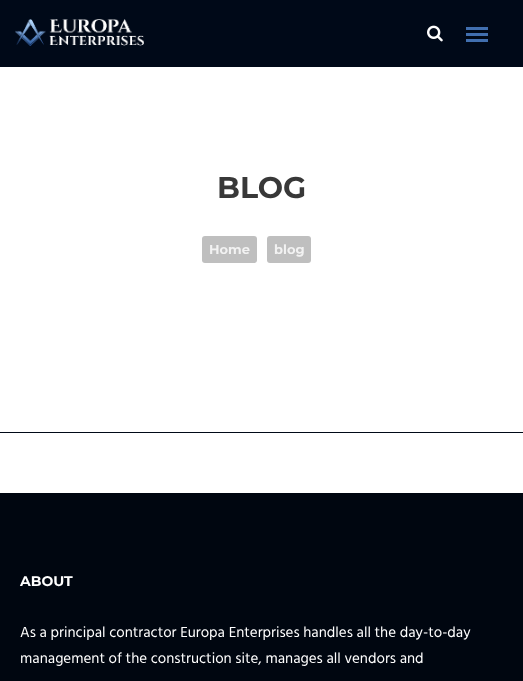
<svg xmlns="http://www.w3.org/2000/svg" width="523" height="681" viewBox="0 0 523 681">
  <rect width="100%" height="100%" fill="rgb(255,255,255)"/>
  <rect x="0" y="0" width="523" height="67" fill="rgb(0,9,24)"/>
  <image x="15" y="19" width="129" height="27" href="pic1.png"/>
  <image x="427" y="25" width="16" height="17" href="pic2.png"/>
  <rect x="466" y="39" width="22" height="3" fill="rgb(65,111,175)"/>
  <rect x="466" y="33" width="22" height="3" fill="rgb(65,111,175)"/>
  <rect x="466" y="27" width="22" height="3" fill="rgb(65,111,175)"/>
  <text x="217" y="198" font-family="Montserrat" font-size="30" font-weight="bold" fill="rgb(56,56,56)">BLOG</text>
  <rect x="202" y="236" width="55" height="27" rx="3" fill="rgb(191,191,191)"/>
  <text x="209" y="254" font-family="Montserrat" font-size="13" font-weight="bold" fill="rgb(242,242,242)">Home</text>
  <rect x="267" y="236" width="44" height="27" rx="3" fill="rgb(191,191,191)"/>
  <text x="274" y="254" font-family="Montserrat" font-size="13" font-weight="bold" fill="rgb(242,242,242)">blog</text>
  <rect x="0" y="432" width="523" height="1" fill="rgb(0,9,23)"/>
  <rect x="0" y="493" width="523" height="188" fill="rgb(0,6,16)"/>
  <text x="20" y="586" font-family="Montserrat" font-size="14" font-weight="bold" fill="rgb(255,255,255)">ABOUT</text>
  <g font-family="Hind" font-size="15" fill="rgb(255,255,255)">
    <text>
      <tspan x="20" y="637">As a principal contractor Europa Enterprises handles all the day-to-day</tspan>
      <tspan x="20" y="663">management of the construction site, manages all vendors and</tspan>
    </text>
  </g>
</svg>
